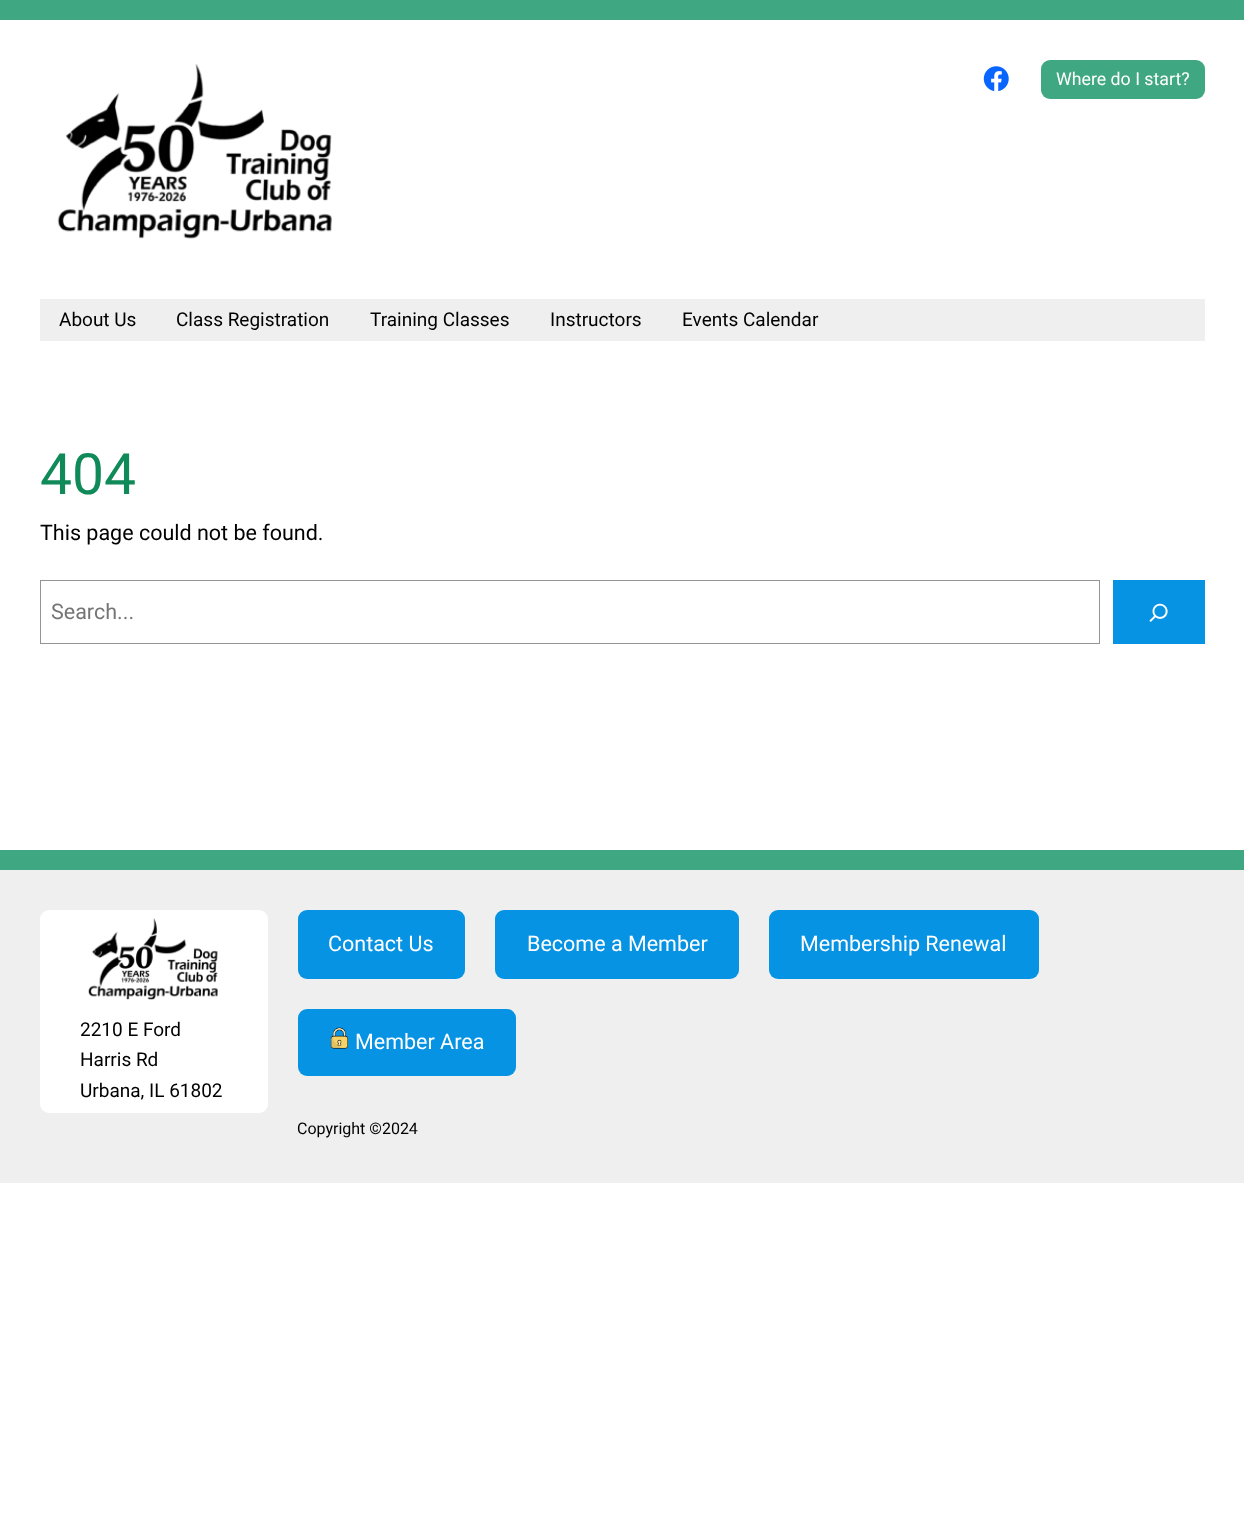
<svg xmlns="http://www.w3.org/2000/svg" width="1244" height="1540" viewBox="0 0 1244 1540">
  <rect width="100%" height="100%" fill="rgb(255,255,255)"/>
  <rect x="0" y="0" width="1244" height="20" fill="rgb(63,167,129)"/>
  <image x="57" y="64" width="275" height="175" href="pic1.png"/>
  <image x="983" y="66" width="26" height="26" href="pic2.png"/>
  <rect x="1041" y="60" width="164" height="39" rx="9" fill="rgb(63,167,129)"/>
  <text x="1056" y="85" font-family="Roboto" font-size="17.75" fill="rgb(255,255,255)">Where do I start?</text>
  <rect x="40" y="299" width="1165" height="42" fill="rgb(239,239,239)"/>
  <g font-family="Roboto" font-size="19" fill="rgb(0,0,0)">
    <text x="59" y="326">About Us</text>
    <text x="176" y="326">Class Registration</text>
    <text x="370" y="326">Training Classes</text>
    <text x="550" y="326">Instructors</text>
    <text x="682" y="326">Events Calendar</text>
  </g>
  <text x="40" y="494" font-family="Roboto" font-size="57" fill="rgb(16,138,89)">404</text>
  <text x="40" y="540" font-family="Roboto" font-size="21.5" fill="rgb(0,0,0)">This page could not be found.</text>
  <rect x="40.5" y="580.5" width="1059" height="63" fill="none" stroke="rgb(148,148,148)"/>
  <text x="51" y="619" font-family="Roboto" font-size="21.5" fill="rgb(117,117,117)">Search...</text>
  <rect x="1113" y="580" width="92" height="64" fill="rgb(6,147,227)"/>
  <image x="1149" y="603" width="19" height="19" href="pic3.png"/>
  <rect x="0" y="850" width="1244" height="20" fill="rgb(63,167,129)"/>
  <rect x="0" y="870" width="1244" height="313" fill="rgb(239,239,239)"/>
  <rect x="40" y="910" width="228" height="203" rx="9" fill="rgb(255,255,255)"/>
  <image x="88" y="918" width="130" height="82" href="pic4.png"/>
  <g font-family="Roboto" font-size="19" fill="rgb(0,0,0)">
    <text>
      <tspan x="80" y="1036">2210 E Ford</tspan>
      <tspan x="80" y="1066">Harris Rd</tspan>
      <tspan x="80" y="1097">Urbana, IL 61802</tspan>
    </text>
  </g>
  <rect x="298" y="910" width="167" height="69" rx="9" fill="rgb(6,147,227)"/>
  <text x="328" y="951" font-family="Roboto" font-size="21.5" fill="rgb(255,255,255)">Contact Us</text>
  <rect x="495" y="910" width="244" height="69" rx="9" fill="rgb(6,147,227)"/>
  <text x="527" y="951" font-family="Roboto" font-size="21.5" fill="rgb(255,255,255)">Become a Member</text>
  <rect x="769" y="910" width="270" height="69" rx="9" fill="rgb(6,147,227)"/>
  <text x="800" y="951" font-family="Roboto" font-size="21.5" fill="rgb(255,255,255)">Membership Renewal</text>
  <rect x="298" y="1009" width="218" height="67" rx="9" fill="rgb(6,147,227)"/>
  <image x="330" y="1027" width="18" height="22" href="pic5.png"/>
  <text x="355" y="1049" font-family="Roboto" font-size="21.5" fill="rgb(255,255,255)">Member Area</text>
  <text x="297" y="1134" font-family="Roboto" font-size="16" fill="rgb(0,0,0)">Copyright ©2024</text>
</svg>
